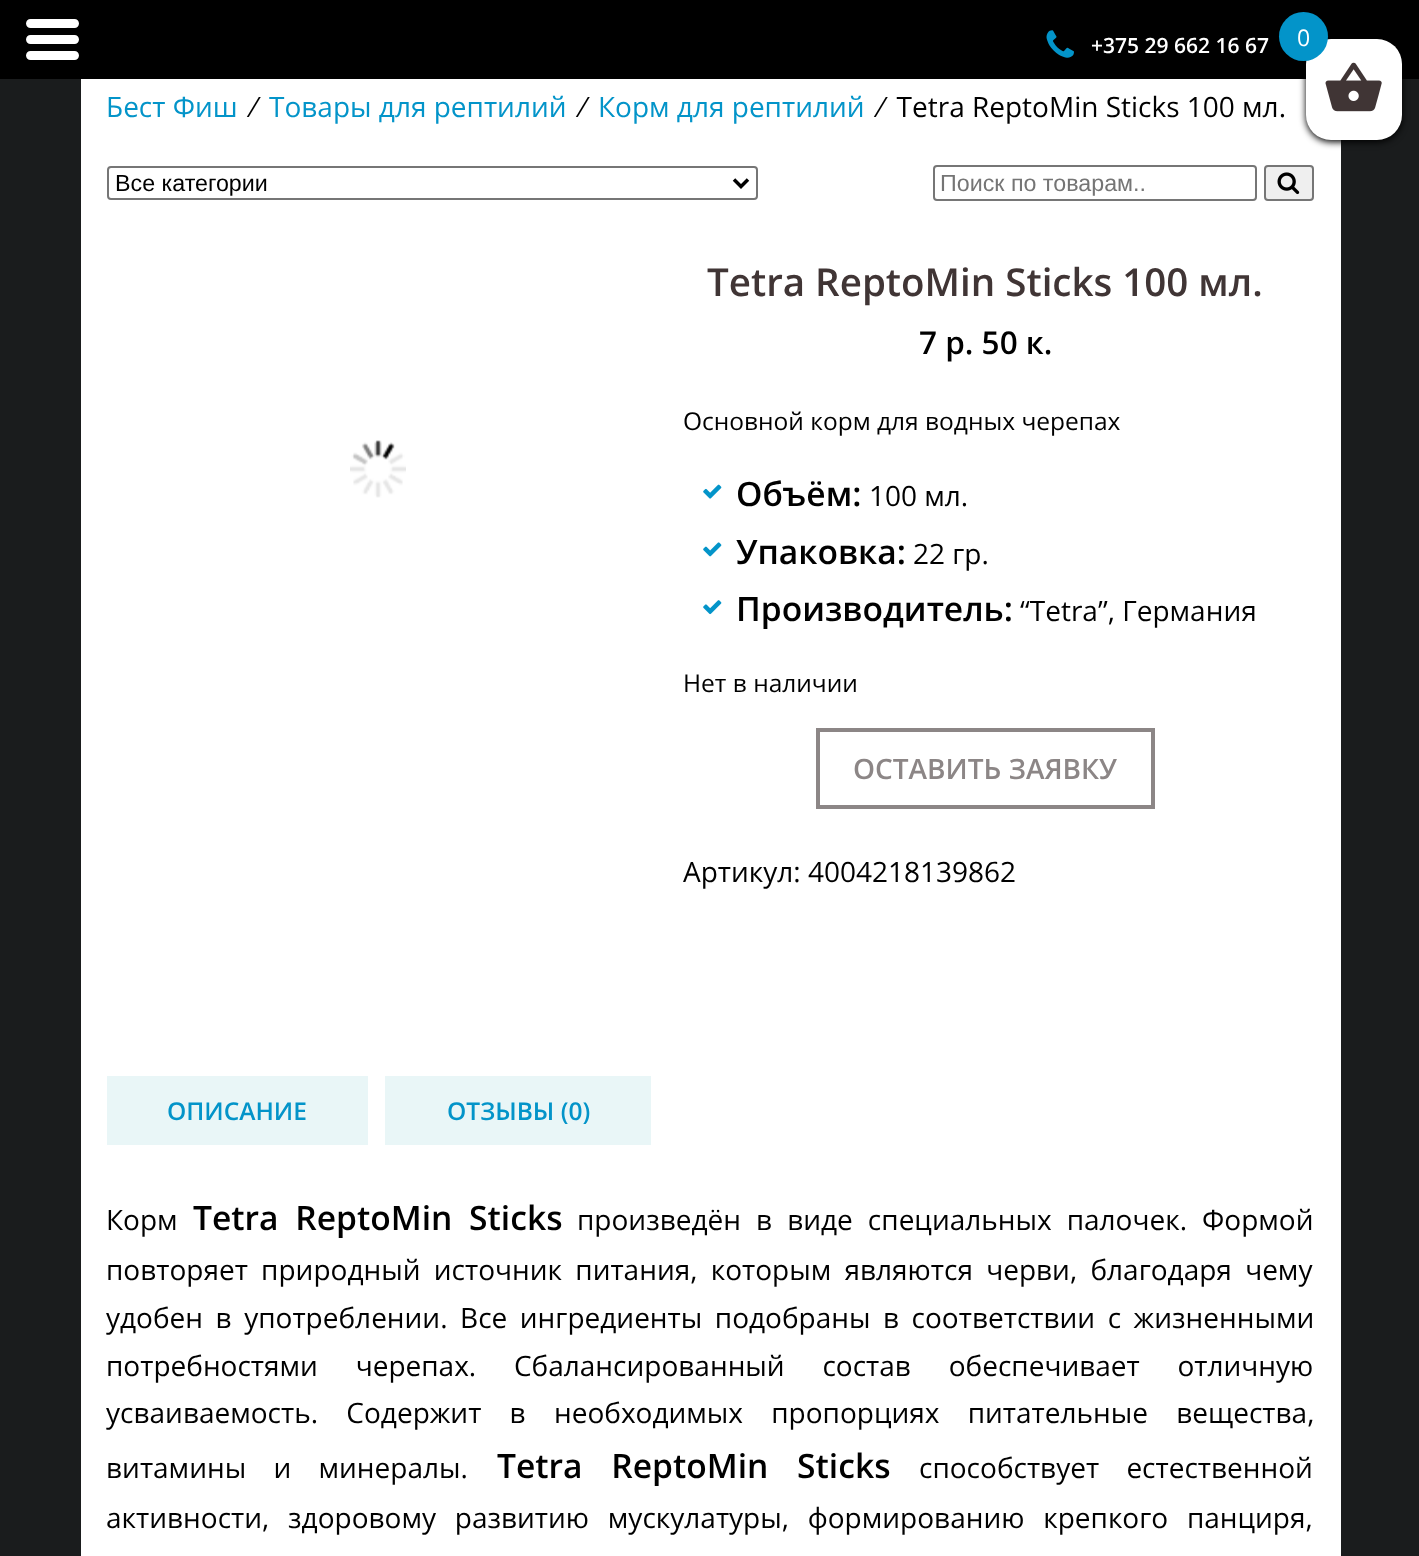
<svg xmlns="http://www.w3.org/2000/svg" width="1419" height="1556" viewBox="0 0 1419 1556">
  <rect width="100%" height="100%" fill="rgb(26,28,29)"/>
  <rect x="0" y="0" width="1419" height="79" fill="rgb(0,0,0)"/>
  <path d="M30.5 19H53V28H30.5C28 28 26 26 26 23.5C26 21 28 19 30.5 19Z" fill="rgb(255,255,255)"/>
  <path d="M53 19H74.5C77 19 79 21 79 23.5C79 26 77 28 74.5 28H53Z" fill="rgb(255,255,255)"/>
  <path d="M30.5 35H53V44H30.5C28 44 26 42 26 39.5C26 37 28 35 30.5 35Z" fill="rgb(255,255,255)"/>
  <path d="M53 35H74.5C77 35 79 37 79 39.5C79 42 77 44 74.5 44H53Z" fill="rgb(255,255,255)"/>
  <path d="M30.5 51H53V60H30.5C28 60 26 58 26 55.5C26 53 28 51 30.5 51Z" fill="rgb(255,255,255)"/>
  <path d="M53 51H74.5C77 51 79 53 79 55.5C79 58 77 60 74.5 60H53Z" fill="rgb(255,255,255)"/>
  <image x="1046" y="30" width="28" height="28" href="pic1.png"/>
  <text x="1091" y="53" font-family="Open Sans" font-size="21" font-weight="600" fill="rgb(255,255,255)">+375 29 662 16 67</text>
  <rect x="81" y="79" width="1260" height="1477" fill="rgb(255,255,255)"/>
  <rect x="1306" y="40" width="96" height="102" rx="25" fill="rgb(0,0,0)" filter="blur(3.5px)"/>
  <rect x="1306" y="39" width="96" height="101" rx="25" fill="rgb(255,255,255)"/>
  <circle cx="1303.5" cy="36.5" r="24.5" fill="rgb(3,148,201)"/>
  <text x="1297" y="46" font-family="Open Sans" font-size="23" fill="rgb(255,255,255)">0</text>
  <image x="1325" y="62" width="57" height="50" href="pic2.png"/>
  <text x="106" y="117" font-family="Open Sans" font-size="28" fill="rgb(3,148,201)">Бест Фиш</text>
  <text x="252" y="117" font-family="Open Sans" font-size="28" fill="rgb(0,0,0)">⁄</text>
  <text x="269" y="117" font-family="Open Sans" font-size="28" fill="rgb(3,148,201)">Товары для рептилий</text>
  <text x="581" y="117" font-family="Open Sans" font-size="28" fill="rgb(0,0,0)">⁄</text>
  <text x="598" y="117" font-family="Open Sans" font-size="28" fill="rgb(3,148,201)">Корм для рептилий</text>
  <text x="879" y="117" font-family="Open Sans" font-size="28" fill="rgb(0,0,0)">⁄ Tetra ReptoMin Sticks 100 мл.</text>
  <rect x="108" y="167" width="649" height="32" rx="3" fill="none" stroke="rgb(118,118,118)" stroke-width="2"/>
  <path d="M734 179.5L741 186.5L748 179.5" fill="none" stroke="rgb(0,0,0)" stroke-width="3.5"/>
  <text x="115" y="191" font-family="Liberation Sans" font-size="23.25" fill="rgb(0,0,0)">Все категории</text>
  <rect x="934" y="166" width="322" height="34" rx="3" fill="none" stroke="rgb(118,118,118)" stroke-width="2"/>
  <text x="940" y="191" font-family="Liberation Sans" font-size="23.25" fill="rgb(117,117,117)">Поиск по товарам..</text>
  <rect x="1265" y="166" width="48" height="34" rx="3" fill="rgb(239,239,239)" stroke="rgb(118,118,118)" stroke-width="2"/>
  <image x="1277" y="172" width="23" height="23" href="pic3.png"/>
  <image x="350" y="440" width="56" height="58" href="pic4.png"/>
  <text x="707" y="296" font-family="Open Sans" font-size="38.5" font-weight="600" fill="rgb(64,53,53)">Tetra ReptoMin Sticks 100 мл.</text>
  <text x="919" y="354" font-family="Open Sans" font-size="31.5" font-weight="600" fill="rgb(0,0,0)">7 р. 50 к.</text>
  <text x="683" y="430" font-family="Open Sans" font-size="24.5" fill="rgb(0,0,0)">Основной корм для водных черепах</text>
  <image x="703" y="484" width="19" height="15" href="pic5.png"/>
  <text x="736" y="506" font-family="Open Sans" font-size="33.6" font-weight="600" fill="rgb(0,0,0)">Объём:</text>
  <text x="869" y="506" font-family="Open Sans" font-size="28" fill="rgb(0,0,0)">100 мл.</text>
  <image x="703" y="542" width="19" height="15" href="pic6.png"/>
  <text x="736" y="564" font-family="Open Sans" font-size="33.6" font-weight="600" fill="rgb(0,0,0)">Упаковка:</text>
  <text x="913" y="564" font-family="Open Sans" font-size="28" fill="rgb(0,0,0)">22 гр.</text>
  <image x="703" y="600" width="19" height="15" href="pic7.png"/>
  <text x="736" y="621" font-family="Open Sans" font-size="33.6" font-weight="600" fill="rgb(0,0,0)">Производитель:</text>
  <text x="1020" y="621" font-family="Open Sans" font-size="28" fill="rgb(0,0,0)">“Tetra”, Германия</text>
  <text x="683" y="692" font-family="Open Sans" font-size="24.5" fill="rgb(0,0,0)">Нет в наличии</text>
  <rect x="818" y="730" width="335" height="77" fill="none" stroke="rgb(140,134,134)" stroke-width="4"/>
  <text x="853" y="779" font-family="Open Sans" font-size="28" font-weight="600" fill="rgb(140,134,134)">ОСТАВИТЬ ЗАЯВКУ</text>
  <text x="683" y="882" font-family="Open Sans" font-size="28" fill="rgb(0,0,0)">Артикул: 4004218139862</text>
  <rect x="107" y="1076" width="261" height="69" fill="rgb(233,246,247)"/>
  <text x="167" y="1120" font-family="Open Sans" font-size="24.5" font-weight="600" fill="rgb(3,148,201)">ОПИСАНИЕ</text>
  <rect x="385" y="1076" width="266" height="69" fill="rgb(233,246,247)"/>
  <text x="447" y="1120" font-family="Open Sans" font-size="24.5" font-weight="600" fill="rgb(3,148,201)">ОТЗЫВЫ (0)</text>
  <text x="106" y="1230" font-family="Open Sans" font-size="28" fill="rgb(0,0,0)">Корм</text>
  <text x="193" y="1230" word-spacing="8" font-family="Open Sans" font-size="33.6" font-weight="600" fill="rgb(0,0,0)">Tetra ReptoMin Sticks</text>
  <g font-family="Open Sans" font-size="28" fill="rgb(0,0,0)">
    <text x="577" y="1230" word-spacing="7.75">произведён в виде специальных палочек. Формой</text>
    <text>
      <tspan x="106" y="1280" word-spacing="6">повторяет природный источник питания, которым являются черви, благодаря чему</tspan>
      <tspan x="106" y="1328" word-spacing="5.25">удобен в употреблении. Все ингредиенты подобраны в соответствии с жизненными</tspan>
      <tspan x="106" y="1376" word-spacing="30.5">потребностями черепах. Сбалансированный состав обеспечивает отличную</tspan>
      <tspan x="106" y="1423" word-spacing="21">усваиваемость. Содержит в необходимых пропорциях питательные вещества,</tspan>
      <tspan x="106" y="1478" word-spacing="20">витамины и минералы.</tspan>
    </text>
  </g>
  <text x="497" y="1478" word-spacing="20" font-family="Open Sans" font-size="33.6" font-weight="600" fill="rgb(0,0,0)">Tetra ReptoMin Sticks</text>
  <g font-family="Open Sans" font-size="28" fill="rgb(0,0,0)">
    <text x="919" y="1478" word-spacing="20">способствует естественной</text>
    <text x="106" y="1528" word-spacing="11.5">активности, здоровому развитию мускулатуры, формированию крепкого панциря,</text>
  </g>
</svg>
